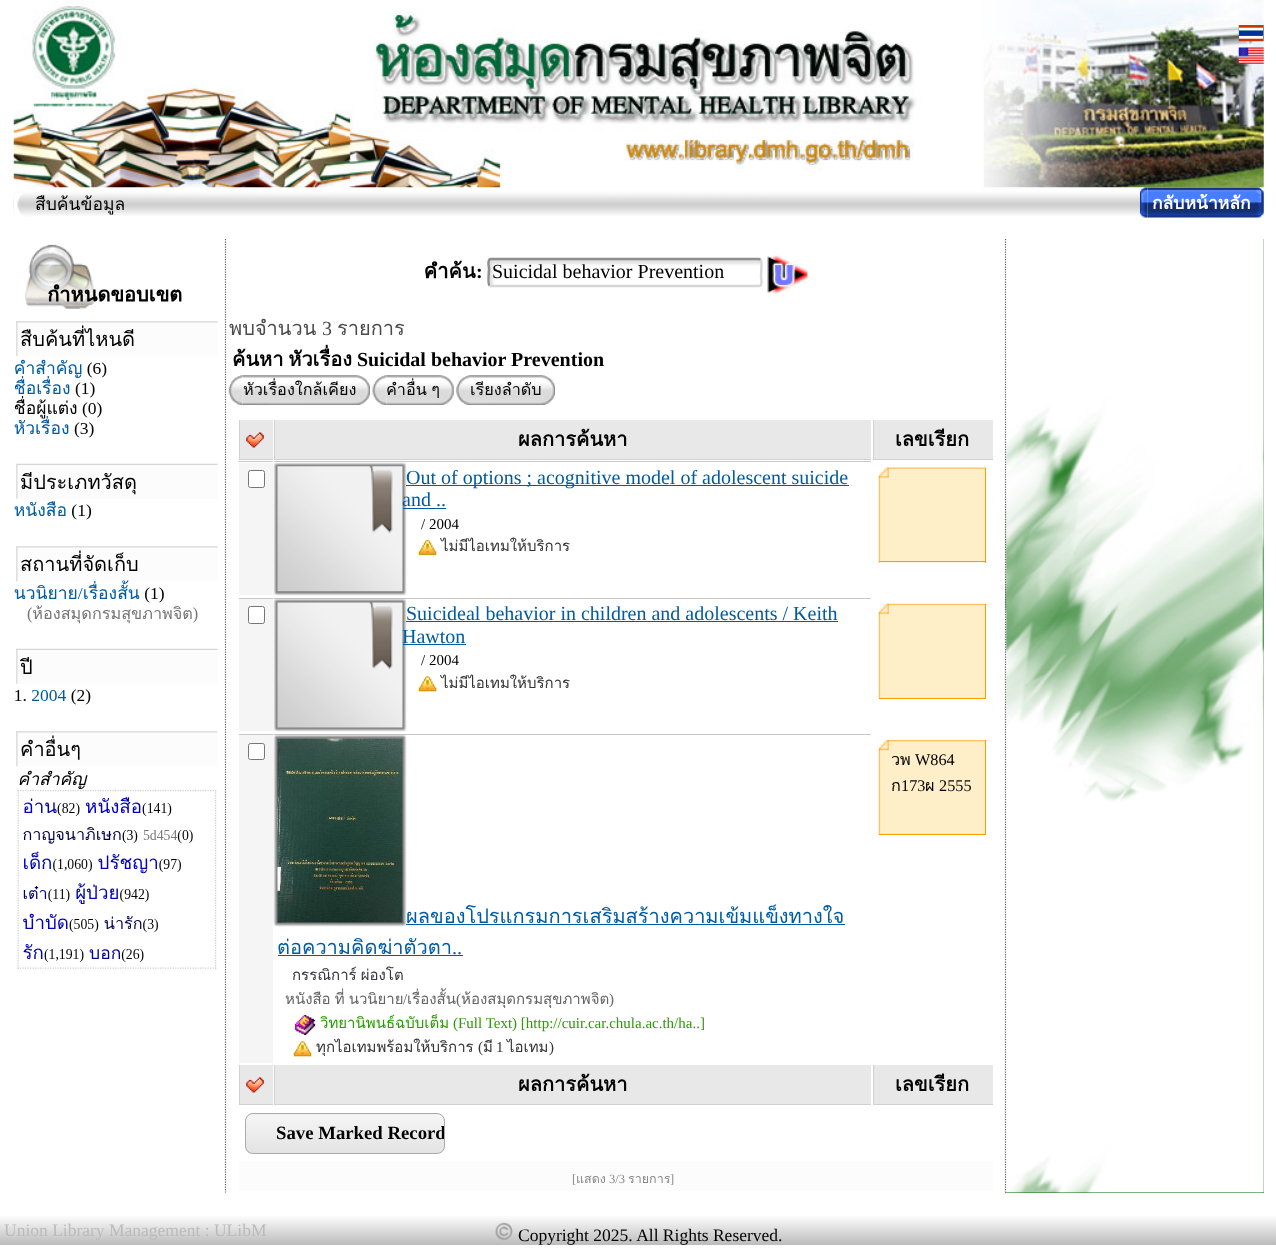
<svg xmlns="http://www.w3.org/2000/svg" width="1276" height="1260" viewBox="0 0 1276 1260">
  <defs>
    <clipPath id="clip1"><rect x="245" y="1113" width="200" height="41" rx="8"/></clipPath>
    <linearGradient id="g1" gradientUnits="userSpaceOnUse" x1="345" y1="1114" x2="345" y2="1153"><stop offset="0.05" stop-color="rgb(245,245,245)"/><stop offset="1" stop-color="rgb(227,227,227)"/></linearGradient>
    <clipPath id="clip2"><rect x="246" y="1114" width="198" height="39" rx="6"/></clipPath>
    <linearGradient id="g2" gradientUnits="userSpaceOnUse" x1="638" y1="1215" x2="638" y2="1245"><stop offset="0" stop-color="rgb(255,255,255)"/><stop offset="1" stop-color="rgb(187,187,187)"/></linearGradient>
  </defs>
  <rect width="100%" height="100%" fill="rgb(255,255,255)"/>
  <image x="13" y="0" width="1251" height="188" href="pic1.png"/>
  <image x="1238" y="25" width="26" height="17" href="pic2.png"/>
  <image x="1238" y="47" width="26" height="17" href="pic3.png"/>
  <image x="13" y="187" width="582" height="29" href="pic4.png"/>
  <image x="14" y="193" width="17" height="24" href="pic5.png"/>
  <text x="35" y="210" font-family="Loma" font-size="17.5" fill="rgb(0,0,0)">สืบค้นข้อมูล</text>
  <image x="595" y="187" width="669" height="29" href="pic6.png"/>
  <image x="1147" y="187" width="117" height="31" href="pic8.png"/>
  <image x="1140" y="187" width="8" height="31" href="pic7.png"/>
  <text x="1152" y="209" font-family="Loma" font-size="17.5" font-weight="bold" fill="rgb(255,255,255)">กลับหน้าหลัก</text>
  <path d="M225.5 239V1192.5" fill="none" stroke="rgb(98,98,98)" stroke-width="1.2" stroke-dasharray="1.25 1.25"/>
  <image x="14" y="244" width="204" height="725" href="pic9.png"/>
  <text x="424" y="278" font-family="Loma" font-size="20" font-weight="bold" fill="rgb(0,0,0)">คำค้น</text>
  <text x="476" y="278" font-family="Liberation Serif" font-size="20" font-weight="bold" fill="rgb(0,0,0)">:</text>
  <image x="490" y="260" width="273" height="28" href="pic10.png"/>
  <path d="M760.5 259.5C762.5 261 761 273.5 761 276C761 278 763 286 759 286H491L489.5 285.5" fill="none" stroke="rgb(215,215,215)" stroke-width="2.5"/>
  <path d="M489.5 285.5C487.5 284 489 271.5 489 269C489 267 487 259 491 259H759L760.5 259.5" fill="none" stroke="rgb(143,143,143)" stroke-width="2.5"/>
  <text x="492" y="278" font-family="Liberation Serif" font-size="20" fill="rgb(0,0,0)">Suicidal behavior Prevention</text>
  <image x="767" y="255" width="41" height="39" href="pic11.png"/>
  <text x="229" y="335" font-family="Loma" font-size="20" fill="rgb(75,75,75)">พบจำนวน</text>
  <text x="322" y="335" font-family="Liberation Serif" font-size="20" fill="rgb(75,75,75)">3</text>
  <text x="337" y="335" font-family="Loma" font-size="20" fill="rgb(75,75,75)">รายการ</text>
  <text x="232" y="366" word-spacing="-2" font-family="Loma" font-size="20" font-weight="bold" fill="rgb(0,0,0)">ค้นหา หัวเรื่อง</text>
  <text x="357" y="366" font-family="Liberation Serif" font-size="20" font-weight="bold" fill="rgb(0,0,0)">Suicidal behavior Prevention</text>
  <image x="228" y="375" width="15" height="30" href="pic12.png"/>
  <image x="242" y="375" width="128" height="30" href="pic13.png"/>
  <text x="243" y="395" font-family="Loma" font-size="16.25" fill="rgb(0,0,0)">หัวเรื่องใกล้เคียง</text>
  <image x="372" y="375" width="15" height="30" href="pic14.png"/>
  <image x="386" y="375" width="68" height="30" href="pic15.png"/>
  <text x="386" y="395" word-spacing="-1" font-family="Loma" font-size="16.25" fill="rgb(0,0,0)">คำอื่น ๆ</text>
  <image x="456" y="375" width="14" height="30" href="pic16.png"/>
  <image x="470" y="375" width="85" height="30" href="pic17.png"/>
  <text x="470" y="395" font-family="Loma" font-size="16.25" fill="rgb(0,0,0)">เรียงลำดับ</text>
  <rect x="240" y="420" width="33" height="39" fill="rgb(232,232,232)"/>
  <rect x="239" y="459" width="34" height="1" fill="rgb(209,209,209)"/>
  <rect x="239" y="420" width="1" height="40" fill="rgb(209,209,209)"/>
  <image x="246" y="432" width="18" height="16" href="pic18.png"/>
  <rect x="275" y="420" width="596" height="39" fill="rgb(232,232,232)"/>
  <rect x="274" y="459" width="597" height="1" fill="rgb(209,209,209)"/>
  <rect x="274" y="420" width="1" height="40" fill="rgb(209,209,209)"/>
  <text x="518" y="446" font-family="Loma" font-size="20" font-weight="bold" fill="rgb(0,0,0)">ผลการค้นหา</text>
  <rect x="874" y="420" width="119" height="39" fill="rgb(232,232,232)"/>
  <rect x="873" y="459" width="120" height="1" fill="rgb(209,209,209)"/>
  <rect x="873" y="420" width="1" height="40" fill="rgb(209,209,209)"/>
  <text x="895" y="446" font-family="Loma" font-size="20" font-weight="bold" fill="rgb(0,0,0)">เลขเรียก</text>
  <rect x="239" y="463" width="34" height="132" fill="rgb(245,245,245)"/>
  <rect x="239" y="461" width="34" height="1" fill="rgb(200,200,200)"/>
  <rect x="248.5" y="470.5" width="16" height="17" rx="2" fill="rgb(255,255,255)" stroke="rgb(118,118,118)"/>
  <rect x="274" y="461" width="597" height="1" fill="rgb(200,200,200)"/>
  <rect x="275" y="464" width="130" height="130" fill="rgba(0,0,0,0.5)" filter="blur(1px)"/>
  <image x="277" y="466" width="126" height="126" href="pic19.png"/>
  <rect x="406" y="485" width="443" height="1" fill="rgb(0,92,162)"/>
  <g font-family="Liberation Serif" font-size="20" fill="rgb(0,92,162)">
    <text x="406" y="484">Out of options ; acognitive model of adolescent suicide</text>
    <text x="402" y="506">and ..</text>
  </g>
  <rect x="403" y="508" width="43" height="1" fill="rgb(0,92,162)"/>
  <text x="421" y="529" font-family="Liberation Serif" font-size="15" fill="rgb(0,0,0)">/ 2004</text>
  <image x="418" y="539" width="19" height="17" href="pic20.png"/>
  <text x="441" y="551" font-family="Loma" font-size="15" fill="rgb(51,51,51)">ไม่มีไอเทมให้บริการ</text>
  <image x="878" y="467" width="109" height="96" href="pic21.png"/>
  <rect x="985" y="468" width="1" height="95" fill="rgb(255,153,0)"/>
  <rect x="879" y="561" width="107" height="1" fill="rgb(255,153,0)"/>
  <rect x="239" y="599" width="34" height="132" fill="rgb(245,245,245)"/>
  <rect x="239" y="598" width="34" height="1" fill="rgb(200,200,200)"/>
  <rect x="248.5" y="606.5" width="16" height="17" rx="2" fill="rgb(255,255,255)" stroke="rgb(118,118,118)"/>
  <rect x="274" y="598" width="597" height="1" fill="rgb(200,200,200)"/>
  <rect x="275" y="600" width="130" height="130" fill="rgba(0,0,0,0.5)" filter="blur(1px)"/>
  <image x="277" y="602" width="126" height="126" href="pic22.png"/>
  <text x="406" y="620" font-family="Liberation Serif" font-size="20" fill="rgb(0,92,162)">Suicideal behavior in children and adolescents / Keith</text>
  <rect x="406" y="621" width="432" height="1" fill="rgb(0,92,162)"/>
  <text x="402" y="643" font-family="Liberation Serif" font-size="20" fill="rgb(0,92,162)">Hawton</text>
  <rect x="403" y="644" width="63" height="1" fill="rgb(0,92,162)"/>
  <text x="421" y="665" font-family="Liberation Serif" font-size="15" fill="rgb(0,0,0)">/ 2004</text>
  <image x="418" y="676" width="19" height="16" href="pic23.png"/>
  <text x="441" y="688" font-family="Loma" font-size="15" fill="rgb(51,51,51)">ไม่มีไอเทมให้บริการ</text>
  <image x="878" y="603" width="109" height="96" href="pic24.png"/>
  <rect x="985" y="604" width="1" height="95" fill="rgb(255,153,0)"/>
  <rect x="879" y="698" width="107" height="1" fill="rgb(255,153,0)"/>
  <rect x="239" y="735" width="34" height="328" fill="rgb(245,245,245)"/>
  <rect x="239" y="734" width="34" height="1" fill="rgb(200,200,200)"/>
  <rect x="248.5" y="743.5" width="16" height="16" rx="2" fill="rgb(255,255,255)" stroke="rgb(118,118,118)"/>
  <image x="878" y="740" width="109" height="95" href="pic25.png"/>
  <rect x="985" y="740" width="1" height="95" fill="rgb(255,153,0)"/>
  <rect x="879" y="834" width="107" height="1" fill="rgb(255,153,0)"/>
  <text x="891" y="765" font-family="Loma" font-size="16.25" fill="rgb(0,0,0)">วพ</text>
  <text x="915" y="765" font-family="Liberation Serif" font-size="16.25" fill="rgb(0,0,0)">W864</text>
  <text x="891" y="791" font-family="Loma" font-size="16.25" fill="rgb(0,0,0)">ก</text>
  <text x="901" y="791" font-family="Liberation Serif" font-size="16.25" fill="rgb(0,0,0)">173</text>
  <text x="925" y="791" font-family="Loma" font-size="16.25" fill="rgb(0,0,0)">ผ</text>
  <text x="939" y="791" font-family="Liberation Serif" font-size="16.25" fill="rgb(0,0,0)">2555</text>
  <rect x="274" y="734" width="597" height="1" fill="rgb(200,200,200)"/>
  <rect x="275" y="736" width="130" height="189" fill="rgba(0,0,0,0.5)" filter="blur(1px)"/>
  <image x="277" y="738" width="126" height="185" href="pic26.png"/>
  <text x="406" y="923" font-family="Loma" font-size="20" fill="rgb(0,92,162)">ผลของโปรแกรมการเสริมสร้างความเข้มแข็งทางใจ</text>
  <rect x="406" y="924" width="439" height="1" fill="rgb(0,92,162)"/>
  <text x="277" y="954" font-family="Loma" font-size="20" fill="rgb(0,92,162)">ต่อความคิดฆ่าตัวตา</text>
  <text x="452" y="954" font-family="Liberation Serif" font-size="20" fill="rgb(0,92,162)">..</text>
  <rect x="278" y="955" width="185" height="1" fill="rgb(0,92,162)"/>
  <text x="292" y="980" word-spacing="-1" font-family="Loma" font-size="15" fill="rgb(52,51,62)">กรรณิการ์ ผ่องโต</text>
  <text x="285" y="1004" word-spacing="-1" font-family="Loma" font-size="15" fill="rgb(100,100,100)">หนังสือ ที่ นวนิยาย</text>
  <text x="403" y="1004" font-family="Liberation Serif" font-size="15" fill="rgb(100,100,100)">/</text>
  <text x="407" y="1004" font-family="Loma" font-size="15" fill="rgb(100,100,100)">เรื่องสั้น</text>
  <text x="456" y="1004" font-family="Liberation Serif" font-size="15" fill="rgb(100,100,100)">(</text>
  <text x="461" y="1004" font-family="Loma" font-size="15" fill="rgb(100,100,100)">ห้องสมุดกรมสุขภาพจิต</text>
  <text x="609" y="1004" font-family="Liberation Serif" font-size="15" fill="rgb(100,100,100)">)</text>
  <image x="294" y="1014" width="22" height="21" href="pic27.png"/>
  <text x="320" y="1028" font-family="Loma" font-size="15" fill="rgb(39,157,0)">วิทยานิพนธ์ฉบับเต็ม</text>
  <text x="453" y="1028" font-family="Liberation Serif" font-size="15" fill="rgb(39,157,0)">(Full Text) [http://cuir.car.chula.ac.th/ha..]</text>
  <image x="293" y="1041" width="19" height="16" href="pic28.png"/>
  <text x="316" y="1052" font-family="Loma" font-size="15" fill="rgb(51,51,51)">ทุกไอเทมพร้อมให้บริการ</text>
  <text x="478" y="1052" font-family="Liberation Serif" font-size="15" fill="rgb(51,51,51)">(</text>
  <g font-family="Loma" font-size="15" fill="rgb(51,51,51)">
    <text x="483" y="1052">มี</text>
    <text x="507" y="1052">ไอเทม</text>
  </g>
  <g font-family="Liberation Serif" font-size="15" fill="rgb(51,51,51)">
    <text x="496" y="1052">1</text>
    <text x="549" y="1052">)</text>
  </g>
  <rect x="240" y="1065" width="33" height="39" fill="rgb(232,232,232)"/>
  <rect x="239" y="1104" width="34" height="1" fill="rgb(209,209,209)"/>
  <rect x="239" y="1065" width="1" height="40" fill="rgb(209,209,209)"/>
  <image x="246" y="1077" width="18" height="16" href="pic18.png"/>
  <rect x="275" y="1065" width="596" height="39" fill="rgb(232,232,232)"/>
  <rect x="274" y="1104" width="597" height="1" fill="rgb(209,209,209)"/>
  <rect x="274" y="1065" width="1" height="40" fill="rgb(209,209,209)"/>
  <text x="518" y="1091" font-family="Loma" font-size="20" font-weight="bold" fill="rgb(0,0,0)">ผลการค้นหา</text>
  <rect x="874" y="1065" width="119" height="39" fill="rgb(232,232,232)"/>
  <rect x="873" y="1104" width="120" height="1" fill="rgb(209,209,209)"/>
  <rect x="873" y="1065" width="1" height="40" fill="rgb(209,209,209)"/>
  <text x="895" y="1091" font-family="Loma" font-size="20" font-weight="bold" fill="rgb(0,0,0)">เลขเรียก</text>
  <g clip-path="url(#clip1)">
    <rect x="245" y="1114" width="200" height="39" fill="url(#g1)"/>
  </g>
  <path d="M252 1115H438C441 1115 444 1118 444 1121C444 1118 443 1115 439 1114H252C248 1114 246 1117 246 1121C246 1118 249 1115 252 1115Z" fill="rgb(240,240,240)"/>
  <rect x="245.5" y="1113.5" width="199" height="40" rx="7.5" fill="none" stroke="rgb(170,170,170)"/>
  <g clip-path="url(#clip2)">
    <text x="276" y="1139" font-family="Liberation Serif" font-size="18.75" font-weight="bold" fill="rgb(0,0,0)">Save Marked Record</text>
  </g>
  <rect x="239" y="1161" width="754" height="30" fill="rgb(252,252,252)"/>
  <text x="572" y="1183" font-family="Liberation Serif" font-size="12.5" fill="rgb(136,136,136)">[</text>
  <text x="576" y="1183" font-family="Loma" font-size="12.5" fill="rgb(136,136,136)">แสดง</text>
  <text x="609" y="1183" font-family="Liberation Serif" font-size="12.5" fill="rgb(136,136,136)">3/3</text>
  <text x="628" y="1183" font-family="Loma" font-size="12.5" fill="rgb(136,136,136)">รายการ</text>
  <text x="670" y="1183" font-family="Liberation Serif" font-size="12.5" fill="rgb(136,136,136)">]</text>
  <rect x="1005" y="239" width="259" height="954" fill="rgb(0,102,0)"/>
  <image x="1005" y="239" width="259" height="954" href="pic29.png"/>
  <path d="M1005.5 239V1192.5" fill="none" stroke="rgb(98,98,98)" stroke-width="1.2" stroke-dasharray="1.25 1.25"/>
  <rect x="0" y="1216" width="1276" height="29" fill="url(#g2)"/>
  <text x="4" y="1236" font-family="Liberation Serif" font-size="17.5" fill="rgb(187,187,187)">Union Library Management : ULibM</text>
  <image x="495" y="1222" width="18" height="19" href="pic30.png"/>
  <text x="518" y="1241" font-family="Liberation Serif" font-size="17.5" fill="rgb(0,0,0)">Copyright 2025. All Rights Reserved.</text>
</svg>
